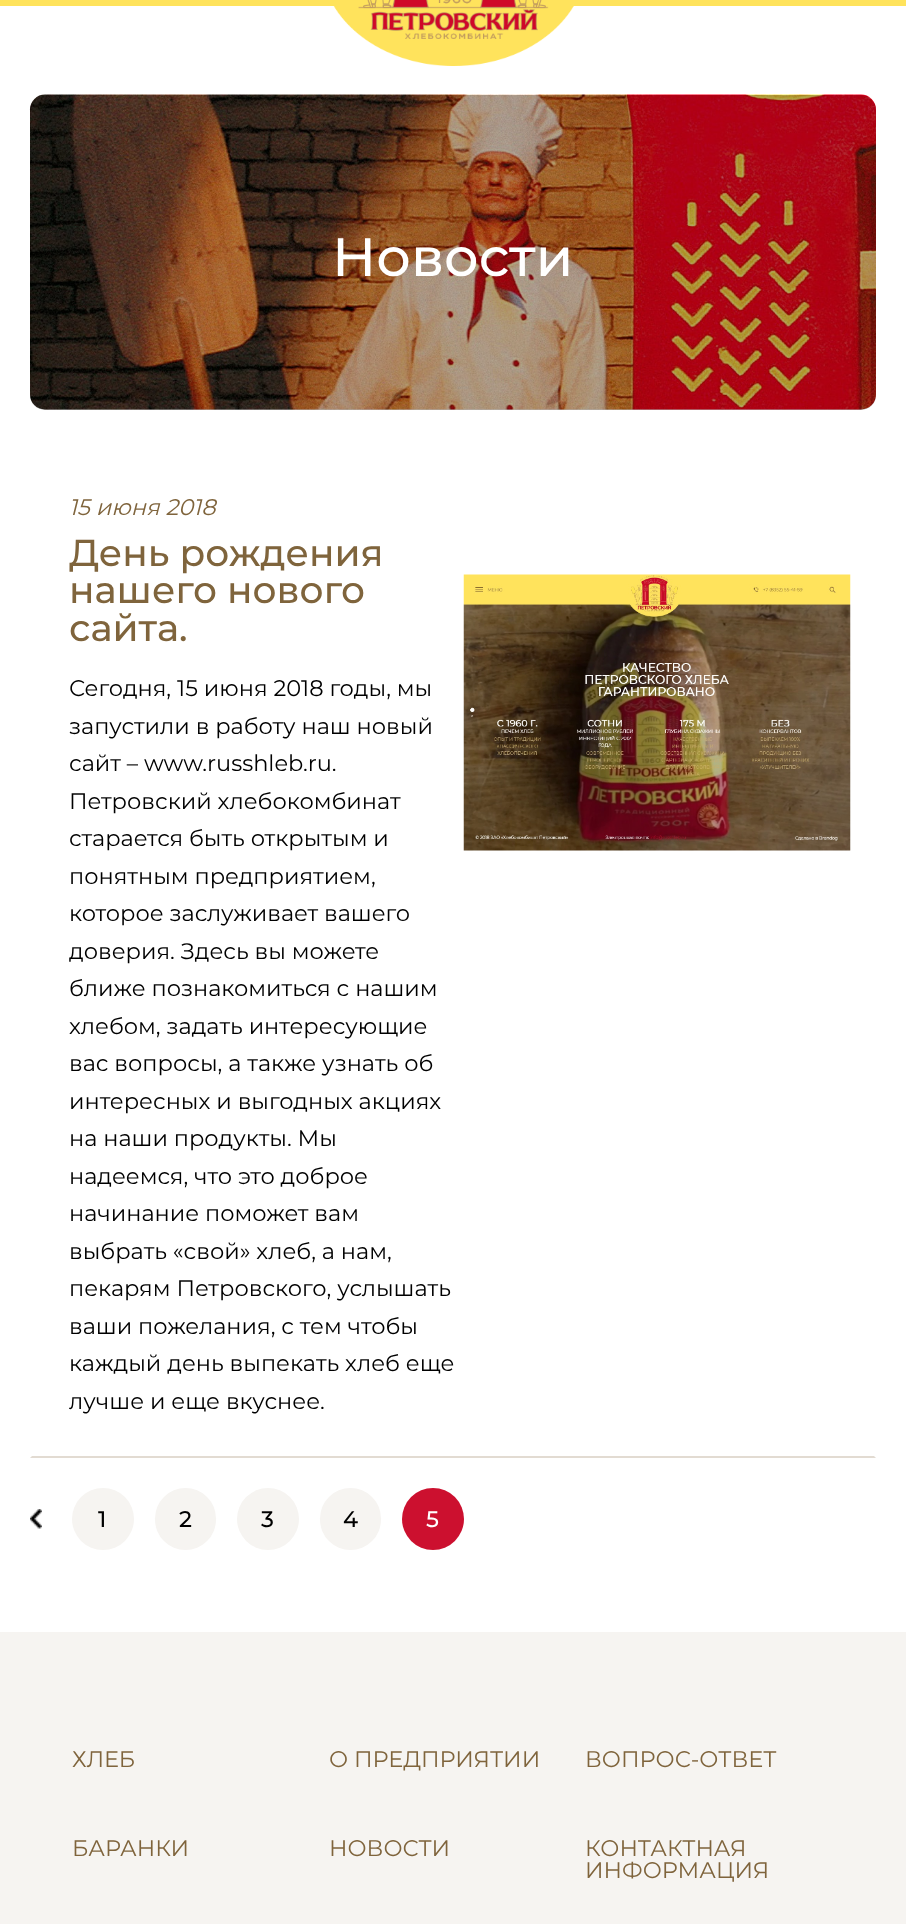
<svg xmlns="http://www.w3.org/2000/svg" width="906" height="1924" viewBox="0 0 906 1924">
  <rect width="100%" height="100%" fill="rgb(255,255,255)"/>
  <rect x="0" y="0" width="906" height="6" fill="rgb(255,227,92)"/>
  <image x="333" y="0" width="241" height="66" href="pic1.png"/>
  <image x="29" y="94" width="847" height="316" href="pic2.png"/>
  <rect x="30" y="95" width="846" height="315" rx="15" fill="rgba(0,0,0,0.3)"/>
  <text x="332" y="276" font-family="Montserrat" font-size="54" font-weight="500" fill="rgb(255,255,255)">Новости</text>
  <path d="M876 1458H30L32 1456H874Z" fill="rgb(226,219,210)"/>
  <text x="69" y="515" font-family="Montserrat" font-size="22.5" font-style="italic" fill="rgb(127,100,60)">15 июня 2018</text>
  <g font-family="Montserrat" font-size="37.5" font-weight="500" fill="rgb(127,100,60)">
    <text>
      <tspan x="69" y="566">День рождения</tspan>
      <tspan x="69" y="603">нашего нового</tspan>
      <tspan x="69" y="641">сайта.</tspan>
    </text>
  </g>
  <g font-family="Montserrat" font-size="22.5" fill="rgb(0,0,0)">
    <text>
      <tspan x="69" y="696">Сегодня, 15 июня 2018 годы, мы</tspan>
      <tspan x="69" y="734">запустили в работу наш новый</tspan>
      <tspan x="69" y="771">сайт – www.russhleb.ru.</tspan>
      <tspan x="69" y="809">Петровский хлебокомбинат</tspan>
      <tspan x="69" y="846">старается быть открытым и</tspan>
      <tspan x="69" y="884">понятным предприятием,</tspan>
      <tspan x="69" y="921">которое заслуживает вашего</tspan>
      <tspan x="69" y="959">доверия. Здесь вы можете</tspan>
      <tspan x="69" y="996">ближе познакомиться с нашим</tspan>
      <tspan x="69" y="1034">хлебом, задать интересующие</tspan>
      <tspan x="69" y="1071">вас вопросы, а также узнать об</tspan>
      <tspan x="69" y="1109">интересных и выгодных акциях</tspan>
      <tspan x="69" y="1146">на наши продукты. Мы</tspan>
      <tspan x="69" y="1184">надеемся, что это доброе</tspan>
      <tspan x="69" y="1221">начинание поможет вам</tspan>
      <tspan x="69" y="1259">выбрать «свой» хлеб, а нам,</tspan>
      <tspan x="69" y="1296">пекарям Петровского, услышать</tspan>
      <tspan x="69" y="1334">ваши пожелания, с тем чтобы</tspan>
      <tspan x="69" y="1371">каждый день выпекать хлеб еще</tspan>
      <tspan x="69" y="1409">лучше и еще вкуснее.</tspan>
    </text>
  </g>
  <image x="463" y="574" width="388" height="277" href="pic3.png"/>
  <image x="30" y="1509" width="12" height="20" href="pic4.png"/>
  <circle cx="103" cy="1519" r="31" fill="rgb(246,244,241)"/>
  <text x="98" y="1527" font-family="Montserrat" font-size="22.5" font-weight="500" fill="rgb(0,0,0)">1</text>
  <rect x="155" y="1488" width="61" height="62" rx="30.5" fill="rgb(246,244,241)"/>
  <text x="179" y="1527" font-family="Montserrat" font-size="22.5" font-weight="500" fill="rgb(0,0,0)">2</text>
  <circle cx="268" cy="1519" r="31" fill="rgb(246,244,241)"/>
  <text x="261" y="1527" font-family="Montserrat" font-size="22.5" font-weight="500" fill="rgb(0,0,0)">3</text>
  <rect x="320" y="1488" width="61" height="62" rx="30.5" fill="rgb(246,244,241)"/>
  <text x="343" y="1527" font-family="Montserrat" font-size="22.5" font-weight="500" fill="rgb(0,0,0)">4</text>
  <circle cx="433" cy="1519" r="31" fill="rgb(204,16,47)"/>
  <text x="426" y="1527" font-family="Montserrat" font-size="22.5" font-weight="500" fill="rgb(255,255,255)">5</text>
  <rect x="0" y="1632" width="906" height="292" fill="rgb(246,244,241)"/>
  <g font-family="Montserrat" font-size="22.5" fill="rgb(127,100,60)">
    <text x="72" y="1767">ХЛЕБ</text>
    <text x="72" y="1856">БАРАНКИ</text>
    <text x="329" y="1767">О ПРЕДПРИЯТИИ</text>
    <text x="329" y="1856">НОВОСТИ</text>
    <text x="585" y="1767">ВОПРОС-ОТВЕТ</text>
    <text>
      <tspan x="585" y="1856">КОНТАКТНАЯ</tspan>
      <tspan x="585" y="1878">ИНФОРМАЦИЯ</tspan>
    </text>
  </g>
</svg>
